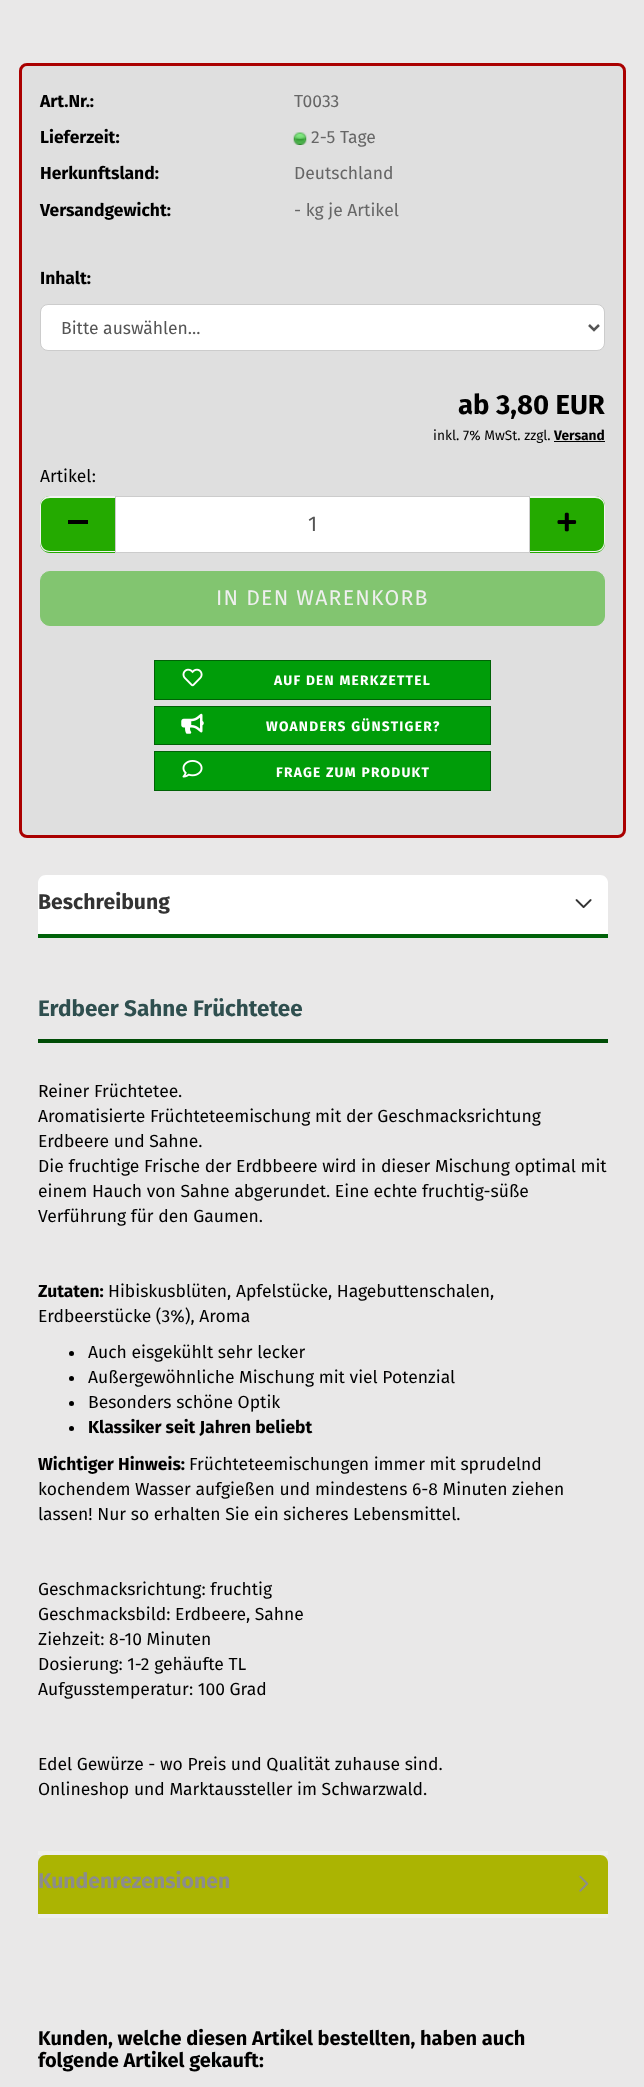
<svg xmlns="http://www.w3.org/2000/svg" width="644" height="2087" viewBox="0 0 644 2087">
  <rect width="100%" height="100%" fill="rgb(233,232,232)"/>
  <rect x="20.5" y="64.5" width="604" height="772" rx="6.5" fill="rgb(223,223,223)" stroke="rgb(170,0,0)" stroke-width="3"/>
  <text x="40" y="107" font-family="Fira Sans" font-size="17.5" font-weight="bold" fill="rgb(0,0,0)">Art.Nr.:</text>
  <text x="294" y="107" font-family="Fira Sans" font-size="17.5" fill="rgb(102,102,102)">T0033</text>
  <text x="40" y="143" font-family="Fira Sans" font-size="17.5" font-weight="bold" fill="rgb(0,0,0)">Lieferzeit:</text>
  <image x="293" y="132" width="14" height="13" href="pic1.png"/>
  <text x="311" y="143" font-family="Fira Sans" font-size="17.5" fill="rgb(102,102,102)">2-5 Tage</text>
  <text x="40" y="179" font-family="Fira Sans" font-size="17.5" font-weight="bold" fill="rgb(0,0,0)">Herkunftsland:</text>
  <text x="294" y="179" font-family="Fira Sans" font-size="17.5" fill="rgb(102,102,102)">Deutschland</text>
  <text x="40" y="216" font-family="Fira Sans" font-size="17.5" font-weight="bold" fill="rgb(0,0,0)">Versandgewicht:</text>
  <text x="294" y="216" font-family="Fira Sans" font-size="17.5" fill="rgb(102,102,102)">- kg je Artikel</text>
  <text x="40" y="284" font-family="Fira Sans" font-size="17.5" font-weight="bold" fill="rgb(0,0,0)">Inhalt:</text>
  <rect x="40.5" y="304.5" width="564" height="46" rx="7.5" fill="rgb(255,255,255)" stroke="rgb(204,204,204)"/>
  <path d="M589 325L594 330L599 325" fill="none" stroke="rgb(85,85,85)" stroke-width="2.5"/>
  <text x="61" y="334" font-family="Fira Sans" font-size="17.5" fill="rgb(85,85,85)">Bitte auswählen...</text>
  <text x="458" y="414" font-family="Fira Sans" font-size="27.5" font-weight="bold" fill="rgb(0,0,0)">ab 3,80 EUR</text>
  <text x="433" y="440" font-family="Fira Sans" font-size="13.75" fill="rgb(0,0,0)">inkl. 7% MwSt. zzgl.</text>
  <text x="554" y="440" font-family="Fira Sans" font-size="13.75" font-weight="bold" fill="rgb(0,0,0)">Versand</text>
  <rect x="554" y="441" width="51" height="1" fill="rgb(0,0,0)"/>
  <text x="40" y="482" font-family="Fira Sans" font-size="17.5" fill="rgb(0,0,0)">Artikel:</text>
  <path d="M50 496H115V553H50C44.5 553 40 548.5 40 543V506C40 500.5 44.5 496 50 496Z" fill="rgb(36,170,0)"/>
  <path d="M50 496H115V552H50C44 552 40 548 40 542V506C40 501 44 496 50 496ZM50 498H115V551H50C45 551 41 547 41 542V506C41 501 45 498 50 498Z" fill="rgb(243,243,243)" fill-rule="evenodd"/>
  <rect x="68" y="520" width="20" height="4" fill="rgb(0,0,0)"/>
  <rect x="115.5" y="496.5" width="414" height="56" fill="rgb(255,255,255)" stroke="rgb(204,204,204)"/>
  <text x="308" y="531" font-family="Fira Sans" font-size="21.25" fill="rgb(85,85,85)">1</text>
  <path d="M530 496H595C600.5 496 605 500.5 605 506V543C605 548.5 600.5 553 595 553H530Z" fill="rgb(36,170,0)"/>
  <path d="M530 496H595C601 496 605 501 605 506V542C605 548 601 552 595 552H530ZM530 498H595C600 498 604 501 604 506V542C604 547 600 551 595 551H530Z" fill="rgb(243,243,243)" fill-rule="evenodd"/>
  <image x="557" y="512" width="20" height="20" href="pic2.png"/>
  <rect x="40.5" y="571.5" width="564" height="54" rx="9.5" fill="rgb(130,197,112)" stroke="rgb(130,197,112)"/>
  <text x="216" y="605" font-family="Fira Sans" font-size="21.25" letter-spacing="1.25" fill="rgb(239,239,239)">IN DEN WARENKORB</text>
  <rect x="154.5" y="660.5" width="336" height="39" fill="rgb(0,157,9)" stroke="rgb(0,98,6)"/>
  <image x="182" y="668" width="21" height="19" href="pic3.png"/>
  <text x="274" y="685" font-family="Fira Sans" font-size="13.75" font-weight="bold" letter-spacing="1.25" fill="rgb(255,255,255)">AUF DEN MERKZETTEL</text>
  <rect x="154.5" y="706.5" width="336" height="38" fill="rgb(0,157,9)" stroke="rgb(0,98,6)"/>
  <image x="181" y="713" width="23" height="21" href="pic4.png"/>
  <text x="266" y="731" font-family="Fira Sans" font-size="13.75" font-weight="bold" letter-spacing="1.25" fill="rgb(255,255,255)">WOANDERS GÜNSTIGER?</text>
  <rect x="154.5" y="751.5" width="336" height="39" fill="rgb(0,157,9)" stroke="rgb(0,98,6)"/>
  <image x="182" y="760" width="21" height="18" href="pic5.png"/>
  <text x="276" y="777" font-family="Fira Sans" font-size="13.75" font-weight="bold" letter-spacing="1.25" fill="rgb(255,255,255)">FRAGE ZUM PRODUKT</text>
  <path d="M46 875H600C604.5 875 608 878.5 608 883V938H38V883C38 878.5 41.5 875 46 875Z" fill="rgb(255,255,255)"/>
  <rect x="38" y="934" width="570" height="4" fill="rgb(0,98,9)"/>
  <text x="38" y="909" font-family="Fira Sans" font-size="21.25" font-weight="bold" fill="rgb(51,51,51)">Beschreibung</text>
  <image x="575" y="899" width="17" height="10" href="pic6.png"/>
  <rect x="38" y="1851" width="570" height="4" fill="rgb(238,238,238)"/>
  <rect x="38" y="1039" width="570" height="4" fill="rgb(0,77,6)"/>
  <text x="38" y="1016" font-family="Fira Sans" font-size="22.5" font-weight="bold" fill="rgb(47,79,79)">Erdbeer Sahne Früchtetee</text>
  <g font-family="Fira Sans" font-size="17.5" fill="rgb(0,0,0)">
    <text>
      <tspan x="38" y="1097">Reiner Früchtetee.</tspan>
      <tspan x="38" y="1122">Aromatisierte Früchteteemischung mit der Geschmacksrichtung</tspan>
      <tspan x="38" y="1147">Erdbeere und Sahne.</tspan>
      <tspan x="38" y="1172">Die fruchtige Frische der Erdbbeere wird in dieser Mischung optimal mit</tspan>
      <tspan x="38" y="1197">einem Hauch von Sahne abgerundet. Eine echte fruchtig-süße</tspan>
      <tspan x="38" y="1222">Verführung für den Gaumen.</tspan>
    </text>
  </g>
  <text x="38" y="1297" font-family="Fira Sans" font-size="17.5" font-weight="bold" fill="rgb(0,0,0)">Zutaten:</text>
  <g font-family="Fira Sans" font-size="17.5" fill="rgb(0,0,0)">
    <text x="108" y="1297">Hibiskusblüten, Apfelstücke, Hagebuttenschalen,</text>
    <text x="38" y="1322">Erdbeerstücke (3%), Aroma</text>
  </g>
  <circle cx="71.5" cy="1353.5" r="2.5" fill="rgb(0,0,0)"/>
  <text x="88" y="1358" font-family="Fira Sans" font-size="17.5" fill="rgb(0,0,0)">Auch eisgekühlt sehr lecker</text>
  <circle cx="71.5" cy="1378.5" r="2.5" fill="rgb(0,0,0)"/>
  <text x="88" y="1383" font-family="Fira Sans" font-size="17.5" fill="rgb(0,0,0)">Außergewöhnliche Mischung mit viel Potenzial</text>
  <circle cx="71.5" cy="1403.5" r="2.5" fill="rgb(0,0,0)"/>
  <text x="88" y="1408" font-family="Fira Sans" font-size="17.5" fill="rgb(0,0,0)">Besonders schöne Optik</text>
  <circle cx="71.5" cy="1428.5" r="2.5" fill="rgb(0,0,0)"/>
  <g font-family="Fira Sans" font-size="17.5" font-weight="bold" fill="rgb(0,0,0)">
    <text x="88" y="1433">Klassiker seit Jahren beliebt</text>
    <text x="38" y="1470">Wichtiger Hinweis:</text>
  </g>
  <g font-family="Fira Sans" font-size="17.5" fill="rgb(0,0,0)">
    <text x="189" y="1470">Früchteteemischungen immer mit sprudelnd</text>
    <text>
      <tspan x="38" y="1495">kochendem Wasser aufgießen und mindestens 6-8 Minuten ziehen</tspan>
      <tspan x="38" y="1520">lassen! Nur so erhalten Sie ein sicheres Lebensmittel.</tspan>
    </text>
    <text>
      <tspan x="38" y="1595">Geschmacksrichtung: fruchtig</tspan>
      <tspan x="38" y="1620">Geschmacksbild: Erdbeere, Sahne</tspan>
      <tspan x="38" y="1645">Ziehzeit: 8-10 Minuten</tspan>
      <tspan x="38" y="1670">Dosierung: 1-2 gehäufte TL</tspan>
      <tspan x="38" y="1695">Aufgusstemperatur: 100 Grad</tspan>
    </text>
    <text>
      <tspan x="38" y="1770">Edel Gewürze - wo Preis und Qualität zuhause sind.</tspan>
      <tspan x="38" y="1795">Onlineshop und Marktaussteller im Schwarzwald.</tspan>
    </text>
  </g>
  <path d="M46 1855H600C604.5 1855 608 1858.5 608 1863V1918H38V1863C38 1858.5 41.5 1855 46 1855Z" fill="rgb(171,180,2)"/>
  <rect x="38" y="1914" width="570" height="4" fill="rgb(238,238,238)"/>
  <text x="38" y="1888" font-family="Fira Sans" font-size="21.25" font-weight="bold" fill="rgb(140,140,140)">Kundenrezensionen</text>
  <image x="579" y="1875" width="10" height="17" href="pic7.png"/>
  <g font-family="Fira Sans" font-size="20" font-weight="bold" fill="rgb(0,0,0)">
    <text>
      <tspan x="38" y="2045">Kunden, welche diesen Artikel bestellten, haben auch</tspan>
      <tspan x="38" y="2067">folgende Artikel gekauft:</tspan>
    </text>
  </g>
</svg>
